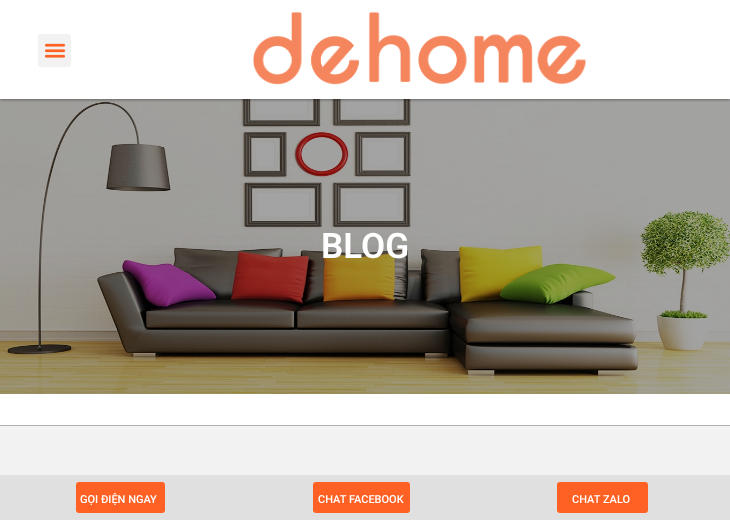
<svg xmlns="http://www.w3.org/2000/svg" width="730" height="520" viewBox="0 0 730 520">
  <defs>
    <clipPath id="clip1"><rect x="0" y="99" width="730" height="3"/></clipPath>
  </defs>
  <rect width="100%" height="100%" fill="rgb(255,255,255)"/>
  <image x="0" y="99" width="730" height="295" href="pic3.png"/>
  <g clip-path="url(#clip1)">
    <rect x="0" y="1" width="730" height="99" fill="rgba(0,0,0,0.35)" filter="blur(1.5px)"/>
  </g>
  <rect x="38" y="34" width="33" height="33" rx="3" fill="rgb(242,242,242)"/>
  <image x="44" y="43" width="22" height="15" href="pic1.png"/>
  <image x="253" y="11" width="334" height="74" href="pic2.png"/>
  <text x="321" y="258" font-family="Roboto" font-size="35" font-weight="600" fill="rgb(255,255,255)">BLOG</text>
  <rect x="0" y="426" width="730" height="49" fill="rgb(242,242,242)"/>
  <rect x="0" y="425" width="730" height="1" fill="rgb(177,177,177)"/>
  <rect x="0" y="475" width="730" height="45" fill="rgb(224,224,224)"/>
  <rect x="76" y="482" width="89" height="31" rx="3" fill="rgb(255,97,36)"/>
  <text x="80" y="503" font-family="Roboto" font-size="11" font-weight="500" fill="rgb(255,255,255)">GỌI ĐIỆN NGAY</text>
  <rect x="313" y="482" width="97" height="31" rx="3" fill="rgb(255,97,36)"/>
  <text x="318" y="503" font-family="Roboto" font-size="11" font-weight="500" fill="rgb(255,255,255)">CHAT FACEBOOK</text>
  <rect x="557" y="482" width="91" height="31" rx="3" fill="rgb(255,97,36)"/>
  <text x="572" y="503" font-family="Roboto" font-size="11" font-weight="500" fill="rgb(255,255,255)">CHAT ZALO</text>
</svg>
